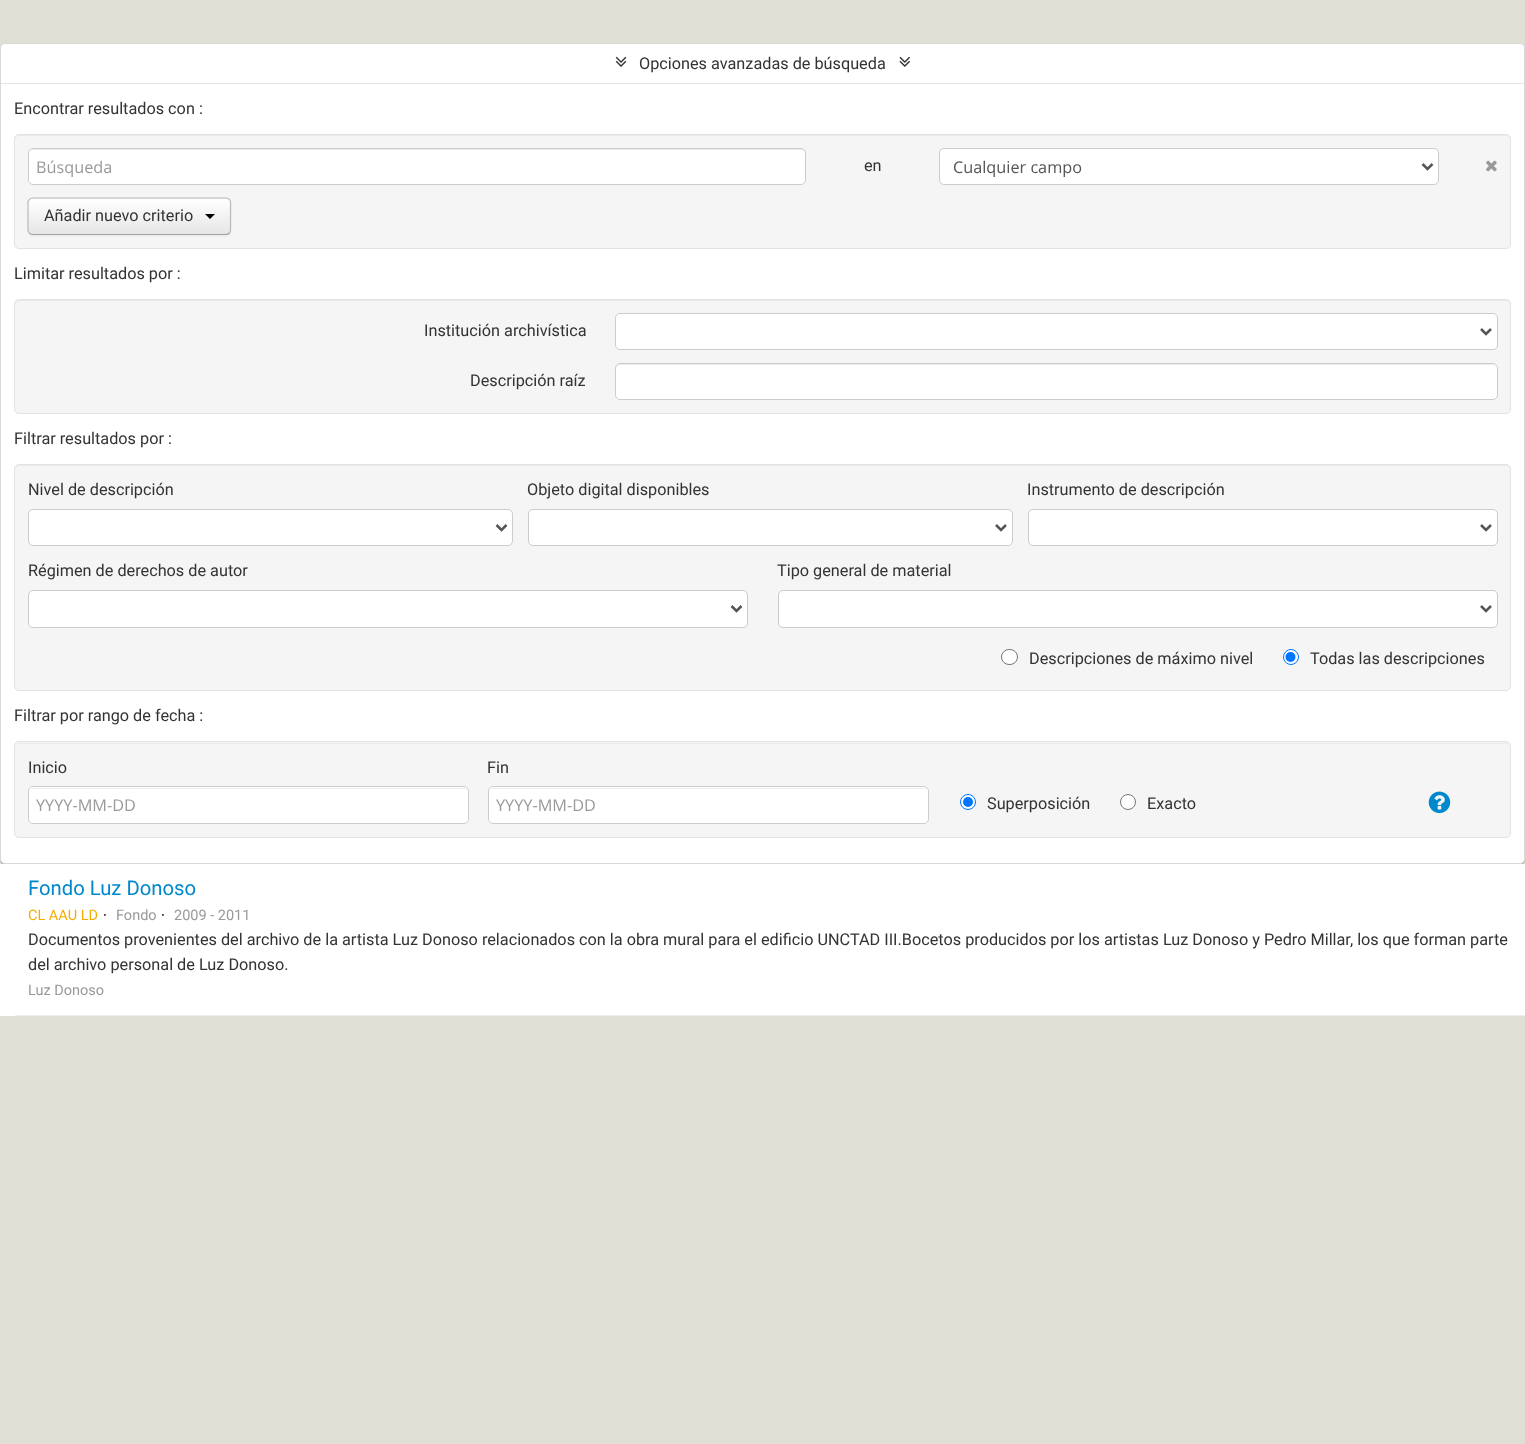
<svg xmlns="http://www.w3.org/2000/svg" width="1525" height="1444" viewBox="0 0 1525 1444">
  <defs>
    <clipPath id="clip1"><rect x="28" y="198" width="203" height="37" rx="5"/></clipPath>
    <linearGradient id="g1" gradientUnits="userSpaceOnUse" x1="129" y1="199" x2="129" y2="234"><stop offset="0" stop-color="rgb(255,255,255)"/><stop offset="1" stop-color="rgb(230,230,230)"/></linearGradient>
  </defs>
  <rect width="100%" height="100%" fill="rgb(224,223,214)"/>
  <rect x="0" y="44" width="1525" height="821" rx="5" fill="rgba(0,0,0,0.2)" filter="blur(0.5px)"/>
  <rect x="0.5" y="43.5" width="1524" height="820" rx="4.5" fill="rgb(255,255,255)" stroke="rgb(217,217,217)"/>
  <image x="615" y="56" width="12" height="11" href="pic1.png"/>
  <text x="639" y="69" font-family="Roboto" font-size="16.25" fill="rgb(51,51,51)">Opciones avanzadas de búsqueda</text>
  <image x="899" y="56" width="11" height="11" href="pic2.png"/>
  <rect x="1" y="83" width="1523" height="1" fill="rgb(227,227,227)"/>
  <text x="14" y="114" font-family="Roboto" font-size="16.25" fill="rgb(51,51,51)">Encontrar resultados con :</text>
  <rect x="14" y="134" width="1497" height="115" rx="5" fill="rgb(245,245,245)"/>
  <path d="M19 136H1506C1508 136 1510 138 1510 140V139C1510 137 1508 135 1506 135H19C17 135 15 137 15 139V140C15 138 17 136 19 136Z" fill="rgb(233,233,233)"/>
  <rect x="14.5" y="134.5" width="1496" height="114" rx="4.5" fill="none" stroke="rgb(227,227,227)"/>
  <rect x="28" y="148" width="778" height="37" rx="5" fill="rgb(255,255,255)"/>
  <path d="M32 150H801C803 150 805 152 805 154V153C805 151 803 149 801 149H33C31 149 29 151 29 153V154C29 152 30 150 32 150Z" fill="rgb(236,236,236)"/>
  <rect x="28.5" y="148.5" width="777" height="36" rx="4.5" fill="none" stroke="rgb(204,204,204)"/>
  <text x="36" y="173" font-family="Open Sans" font-size="16.25" fill="rgb(153,153,153)">Búsqueda</text>
  <text x="864" y="171" font-family="Roboto" font-size="16.25" fill="rgb(51,51,51)">en</text>
  <rect x="939.5" y="148.5" width="499" height="36" rx="4.5" fill="rgb(255,255,255)" stroke="rgb(204,204,204)"/>
  <path d="M1422.5 164L1427.5 169L1432.5 164" fill="none" stroke="rgb(85,85,85)" stroke-width="2.5"/>
  <text x="953" y="173" font-family="Open Sans" font-size="16.25" fill="rgb(85,85,85)">Cualquier campo</text>
  <image x="1486" y="160" width="11" height="12" href="pic3.png"/>
  <rect x="28" y="199" width="203" height="37" rx="5" fill="rgba(0,0,0,0.05)" filter="blur(1px)"/>
  <g clip-path="url(#clip1)">
    <rect x="28" y="199" width="203" height="35" fill="url(#g1)"/>
  </g>
  <path d="M229.5 233C228.5 234 227.5 234.5 226 234.5H32.5C31.5 234.5 30 234 29.5 233" fill="none" stroke="rgb(162,162,162)" stroke-width="1.2"/>
  <path d="M29.5 233C28.5 232.5 28 231 28 230V202.5C28 201.5 28.5 200 29.5 199.5C30 198.5 31.5 198 32.5 198H226C227.5 198 228.5 198.5 229.5 199.5C230 200 230.5 201.5 230.5 202.5V230C230.5 231 230 232.5 229.5 233" fill="none" stroke="rgb(187,187,187)" stroke-width="1.2"/>
  <text x="44" y="221" font-family="Roboto" font-size="16.25" fill="rgb(51,51,51)">Añadir nuevo criterio</text>
  <path d="M205 214H215L210 219Z" fill="rgb(0,0,0)"/>
  <text x="14" y="279" font-family="Roboto" font-size="16.25" fill="rgb(51,51,51)">Limitar resultados por :</text>
  <rect x="14" y="299" width="1497" height="115" rx="5" fill="rgb(245,245,245)"/>
  <path d="M19 301H1506C1508 301 1510 303 1510 305V304C1510 302 1508 300 1506 300H19C17 300 15 302 15 304V305C15 303 17 301 19 301Z" fill="rgb(233,233,233)"/>
  <rect x="14.5" y="299.5" width="1496" height="114" rx="4.5" fill="none" stroke="rgb(227,227,227)"/>
  <text x="424" y="336" font-family="Roboto" font-size="16.25" fill="rgb(51,51,51)">Institución archivística</text>
  <rect x="615.5" y="313.5" width="882" height="36" rx="4.5" fill="rgb(255,255,255)" stroke="rgb(204,204,204)"/>
  <path d="M1481 329L1486 334L1491 329" fill="none" stroke="rgb(85,85,85)" stroke-width="2.5"/>
  <text x="470" y="386" font-family="Roboto" font-size="16.25" fill="rgb(51,51,51)">Descripción raíz</text>
  <rect x="615" y="363" width="883" height="37" rx="5" fill="rgb(255,255,255)"/>
  <path d="M620 365H1492C1495 365 1496 367 1496 369C1496 366 1495 364 1492 364H620C617 364 616 366 616 369C616 367 618 365 620 365Z" fill="rgb(236,236,236)"/>
  <rect x="615.5" y="363.5" width="882" height="36" rx="4.5" fill="none" stroke="rgb(204,204,204)"/>
  <text x="14" y="444" font-family="Roboto" font-size="16.25" fill="rgb(51,51,51)">Filtrar resultados por :</text>
  <rect x="14" y="464" width="1497" height="227" rx="5" fill="rgb(245,245,245)"/>
  <path d="M19 466H1506C1508 466 1510 468 1510 470V469C1510 467 1508 465 1506 465H19C17 465 15 467 15 469V470C15 468 17 466 19 466Z" fill="rgb(233,233,233)"/>
  <rect x="14.5" y="464.5" width="1496" height="226" rx="4.5" fill="none" stroke="rgb(227,227,227)"/>
  <text x="28" y="495" font-family="Roboto" font-size="16.25" fill="rgb(51,51,51)">Nivel de descripción</text>
  <rect x="28.5" y="509.5" width="484" height="36" rx="4.5" fill="rgb(255,255,255)" stroke="rgb(204,204,204)"/>
  <path d="M496.5 525L501.5 530L506.5 525" fill="none" stroke="rgb(85,85,85)" stroke-width="2.5"/>
  <text x="527" y="495" font-family="Roboto" font-size="16.25" fill="rgb(51,51,51)">Objeto digital disponibles</text>
  <rect x="528.5" y="509.5" width="484" height="36" rx="4.5" fill="rgb(255,255,255)" stroke="rgb(204,204,204)"/>
  <path d="M996 525L1001 530L1006 525" fill="none" stroke="rgb(85,85,85)" stroke-width="2.5"/>
  <text x="1027" y="495" font-family="Roboto" font-size="16.25" fill="rgb(51,51,51)">Instrumento de descripción</text>
  <rect x="1028.5" y="509.5" width="469" height="36" rx="4.5" fill="rgb(255,255,255)" stroke="rgb(204,204,204)"/>
  <path d="M1481 525L1486 530L1491 525" fill="none" stroke="rgb(85,85,85)" stroke-width="2.5"/>
  <text x="28" y="576" font-family="Roboto" font-size="16.25" fill="rgb(51,51,51)">Régimen de derechos de autor</text>
  <rect x="28.5" y="590.5" width="719" height="37" rx="4.5" fill="rgb(255,255,255)" stroke="rgb(204,204,204)"/>
  <path d="M731.5 606L736.5 611L741.5 606" fill="none" stroke="rgb(85,85,85)" stroke-width="2.5"/>
  <text x="777" y="576" font-family="Roboto" font-size="16.25" fill="rgb(51,51,51)">Tipo general de material</text>
  <rect x="778.5" y="590.5" width="719" height="37" rx="4.5" fill="rgb(255,255,255)" stroke="rgb(204,204,204)"/>
  <path d="M1481 606L1486 611L1491 606" fill="none" stroke="rgb(85,85,85)" stroke-width="2.5"/>
  <rect x="1001.5" y="649.5" width="16" height="15" rx="7.5" fill="rgb(255,255,255)" stroke="rgb(118,118,118)"/>
  <text x="1029" y="664" font-family="Roboto" font-size="16.25" fill="rgb(51,51,51)">Descripciones de máximo nivel</text>
  <circle cx="1291" cy="657" r="7.5" fill="rgb(255,255,255)" stroke="rgb(0,117,255)"/>
  <circle cx="1290.5" cy="657" r="5" fill="rgb(0,117,255)"/>
  <g font-family="Roboto" font-size="16.25" fill="rgb(51,51,51)">
    <text x="1310" y="664">Todas las descripciones</text>
    <text x="14" y="721">Filtrar por rango de fecha :</text>
  </g>
  <rect x="14" y="741" width="1497" height="97" rx="5" fill="rgb(245,245,245)"/>
  <path d="M19 744H1506C1508 744 1510 745 1510 748V747C1510 745 1508 743 1506 743H19C17 743 15 745 15 747V748C15 745 17 744 19 744Z" fill="rgb(233,233,233)"/>
  <rect x="14.5" y="741.5" width="1496" height="96" rx="4.5" fill="none" stroke="rgb(227,227,227)"/>
  <text x="28" y="773" font-family="Roboto" font-size="16.25" fill="rgb(51,51,51)">Inicio</text>
  <rect x="28" y="786" width="441" height="38" rx="5" fill="rgb(255,255,255)"/>
  <path d="M32 789H464C466 789 468 790 468 792C468 790 466 788 464 788H33C32 788 30 789 30 790Z" fill="rgb(236,236,236)"/>
  <rect x="28.5" y="786.5" width="440" height="37" rx="4.5" fill="none" stroke="rgb(204,204,204)"/>
  <text x="36" y="811" font-family="Open Sans" font-size="16.25" fill="rgb(153,153,153)">YYYY-MM-DD</text>
  <text x="487" y="773" font-family="Roboto" font-size="16.25" fill="rgb(51,51,51)">Fin</text>
  <rect x="488" y="786" width="441" height="38" rx="5" fill="rgb(255,255,255)"/>
  <path d="M492 789H924C926 789 928 790 928 792C928 790 926 788 924 788H493C492 788 490 789 490 790Z" fill="rgb(236,236,236)"/>
  <rect x="488.5" y="786.5" width="440" height="37" rx="4.5" fill="none" stroke="rgb(204,204,204)"/>
  <text x="496" y="811" font-family="Open Sans" font-size="16.25" fill="rgb(153,153,153)">YYYY-MM-DD</text>
  <circle cx="968" cy="802" r="7.5" fill="rgb(255,255,255)" stroke="rgb(0,117,255)"/>
  <circle cx="968" cy="802" r="5" fill="rgb(0,117,255)"/>
  <text x="987" y="809" font-family="Roboto" font-size="16.25" fill="rgb(51,51,51)">Superposición</text>
  <circle cx="1128" cy="802" r="7.5" fill="rgb(255,255,255)" stroke="rgb(118,118,118)"/>
  <text x="1147" y="809" font-family="Roboto" font-size="16.25" fill="rgb(51,51,51)">Exacto</text>
  <image x="1428" y="791" width="23" height="22" href="pic4.png"/>
  <rect x="0" y="864" width="1525" height="152" fill="rgb(255,255,255)"/>
  <rect x="15" y="1015" width="1510" height="1" fill="rgb(238,238,238)"/>
  <text x="28" y="895" font-family="Roboto" font-size="20.25" fill="rgb(0,136,204)">Fondo Luz Donoso</text>
  <text x="28" y="920" font-family="Roboto" font-size="14.5" fill="rgb(246,172,0)">CL AAU LD</text>
  <text x="103" y="920" font-family="Open Sans" font-size="14.5" fill="rgb(0,0,0)">·</text>
  <text x="116" y="920" font-family="Roboto" font-size="14.5" fill="rgb(153,153,153)">Fondo</text>
  <text x="161" y="920" font-family="Open Sans" font-size="14.5" fill="rgb(0,0,0)">·</text>
  <text x="174" y="920" font-family="Roboto" font-size="14.5" fill="rgb(153,153,153)">2009 - 2011</text>
  <g font-family="Roboto" font-size="16.25" fill="rgb(51,51,51)">
    <text>
      <tspan x="28" y="945">Documentos provenientes del archivo de la artista Luz Donoso relacionados con la obra mural para el edificio UNCTAD III.Bocetos producidos por los artistas Luz Donoso y Pedro Millar, los que forman parte</tspan>
      <tspan x="28" y="970">del archivo personal de Luz Donoso.</tspan>
    </text>
  </g>
  <text x="28" y="995" font-family="Roboto" font-size="14.5" fill="rgb(153,153,153)">Luz Donoso</text>
</svg>
